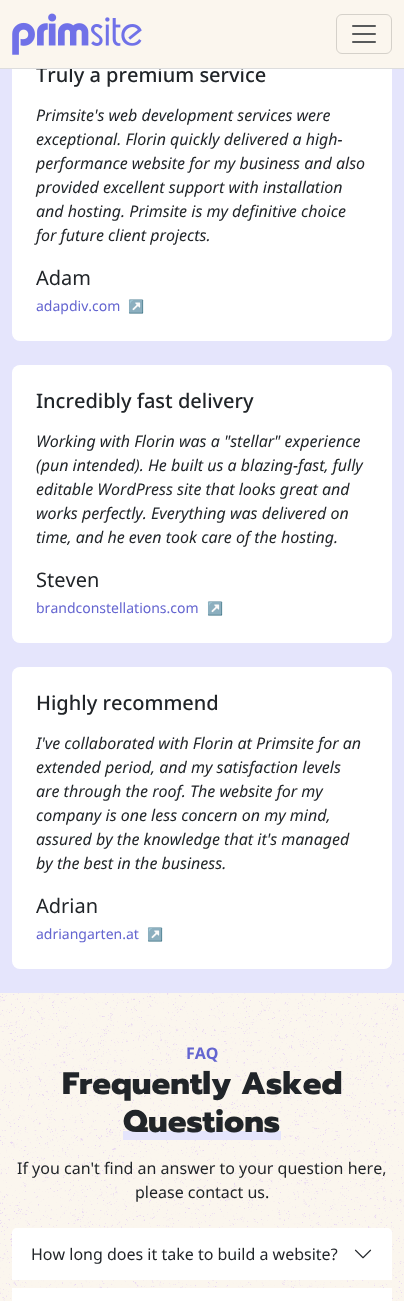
<svg xmlns="http://www.w3.org/2000/svg" width="404" height="1301" viewBox="0 0 404 1301">
  <style>*{font-kerning:none!important;font-variant-ligatures:none!important}</style>
  <rect width="100%" height="100%" fill="rgb(251,246,238)"/>
  <image x="0" y="993" width="404" height="308" href="pic1.png"/>
  <rect x="0" y="69" width="404" height="924" fill="rgb(229,229,252)"/>
  <rect x="12" y="39" width="380" height="302" rx="8" fill="rgb(255,255,255)"/>
  <text x="36" y="82" font-family="Noto Sans" font-size="20" font-weight="500" fill="rgb(33,37,41)">Truly a premium service</text>
  <rect x="12" y="39" width="380" height="29" fill="rgb(251,246,238)"/>
  <rect x="0" y="68" width="404" height="1" fill="rgb(221,221,221)"/>
  <image x="12" y="13" width="130" height="42" href="pic2.png"/>
  <rect x="336.5" y="14.5" width="55" height="39" rx="5.5" fill="none" stroke="rgb(213,209,202)"/>
  <image x="352" y="25" width="24" height="18" href="pic3.png"/>
  <g font-family="Noto Sans" font-size="16" font-style="italic" fill="rgb(33,37,41)">
    <text>
      <tspan x="36" y="121">Primsite's web development services were</tspan>
      <tspan x="36" y="145">exceptional. Florin quickly delivered a high-</tspan>
      <tspan x="36" y="169">performance website for my business and also</tspan>
      <tspan x="36" y="193">provided excellent support with installation</tspan>
      <tspan x="36" y="217">and hosting. Primsite is my definitive choice</tspan>
      <tspan x="36" y="241">for future client projects.</tspan>
    </text>
  </g>
  <text x="36" y="285" font-family="Noto Sans" font-size="20" fill="rgb(33,37,41)">Adam</text>
  <text x="36" y="311" font-family="Noto Sans" font-size="14" fill="rgb(100,101,208)">adapdiv.com</text>
  <text x="128" y="311" font-family="Noto Color Emoji" font-size="13" fill="rgb(100,101,208)">↗</text>
  <rect x="12" y="365" width="380" height="278" rx="8" fill="rgb(255,255,255)"/>
  <text x="36" y="408" font-family="Noto Sans" font-size="20" font-weight="500" fill="rgb(33,37,41)">Incredibly fast delivery</text>
  <g font-family="Noto Sans" font-size="16" font-style="italic" fill="rgb(33,37,41)">
    <text>
      <tspan x="36" y="447">Working with Florin was a "stellar" experience</tspan>
      <tspan x="36" y="471">(pun intended). He built us a blazing-fast, fully</tspan>
      <tspan x="36" y="495">editable WordPress site that looks great and</tspan>
      <tspan x="36" y="519">works perfectly. Everything was delivered on</tspan>
      <tspan x="36" y="543">time, and he even took care of the hosting.</tspan>
    </text>
  </g>
  <text x="36" y="587" font-family="Noto Sans" font-size="20" fill="rgb(33,37,41)">Steven</text>
  <text x="36" y="613" font-family="Noto Sans" font-size="14" fill="rgb(100,101,208)">brandconstellations.com</text>
  <text x="207" y="613" font-family="Noto Color Emoji" font-size="13" fill="rgb(100,101,208)">↗</text>
  <rect x="12" y="667" width="380" height="302" rx="8" fill="rgb(255,255,255)"/>
  <text x="36" y="710" font-family="Noto Sans" font-size="20" font-weight="500" fill="rgb(33,37,41)">Highly recommend</text>
  <g font-family="Noto Sans" font-size="16" font-style="italic" fill="rgb(33,37,41)">
    <text>
      <tspan x="36" y="749">I've collaborated with Florin at Primsite for an</tspan>
      <tspan x="36" y="773">extended period, and my satisfaction levels</tspan>
      <tspan x="36" y="797">are through the roof. The website for my</tspan>
      <tspan x="36" y="821">company is one less concern on my mind,</tspan>
      <tspan x="36" y="845">assured by the knowledge that it's managed</tspan>
      <tspan x="36" y="869">by the best in the business.</tspan>
    </text>
  </g>
  <text x="36" y="913" font-family="Noto Sans" font-size="20" fill="rgb(33,37,41)">Adrian</text>
  <text x="36" y="939" font-family="Noto Sans" font-size="14" fill="rgb(100,101,208)">adriangarten.at</text>
  <text x="147" y="939" font-family="Noto Color Emoji" font-size="13" fill="rgb(100,101,208)">↗</text>
  <text x="186" y="1059" font-family="Noto Sans" font-size="16" font-weight="bold" fill="rgb(100,101,208)">FAQ</text>
  <text x="62" y="1094" font-family="Prompt" font-size="31.25" font-weight="800" fill="rgb(33,37,41)">Frequently Asked</text>
  <rect x="123" y="1131" width="158" height="9" fill="rgb(229,229,252)"/>
  <text x="123" y="1132" font-family="Prompt" font-size="31.25" font-weight="800" fill="rgb(33,37,41)">Questions</text>
  <g font-family="Noto Sans" font-size="16" fill="rgb(33,37,41)">
    <text x="17" y="1174">If you can't find an answer to your question here,</text>
    <text x="135" y="1198">please contact us.</text>
  </g>
  <path d="M17 1228H387C390 1228 392 1230 392 1233V1280H12V1233C12 1230 14 1228 17 1228Z" fill="rgb(255,255,255)"/>
  <text x="31" y="1260" font-family="Noto Sans" font-size="16" fill="rgb(33,37,41)">How long does it take to build a website?</text>
  <image x="354" y="1249" width="18" height="10" href="pic4.png"/>
  <rect x="12" y="1288" width="380" height="13" fill="rgb(255,255,255)"/>
</svg>
